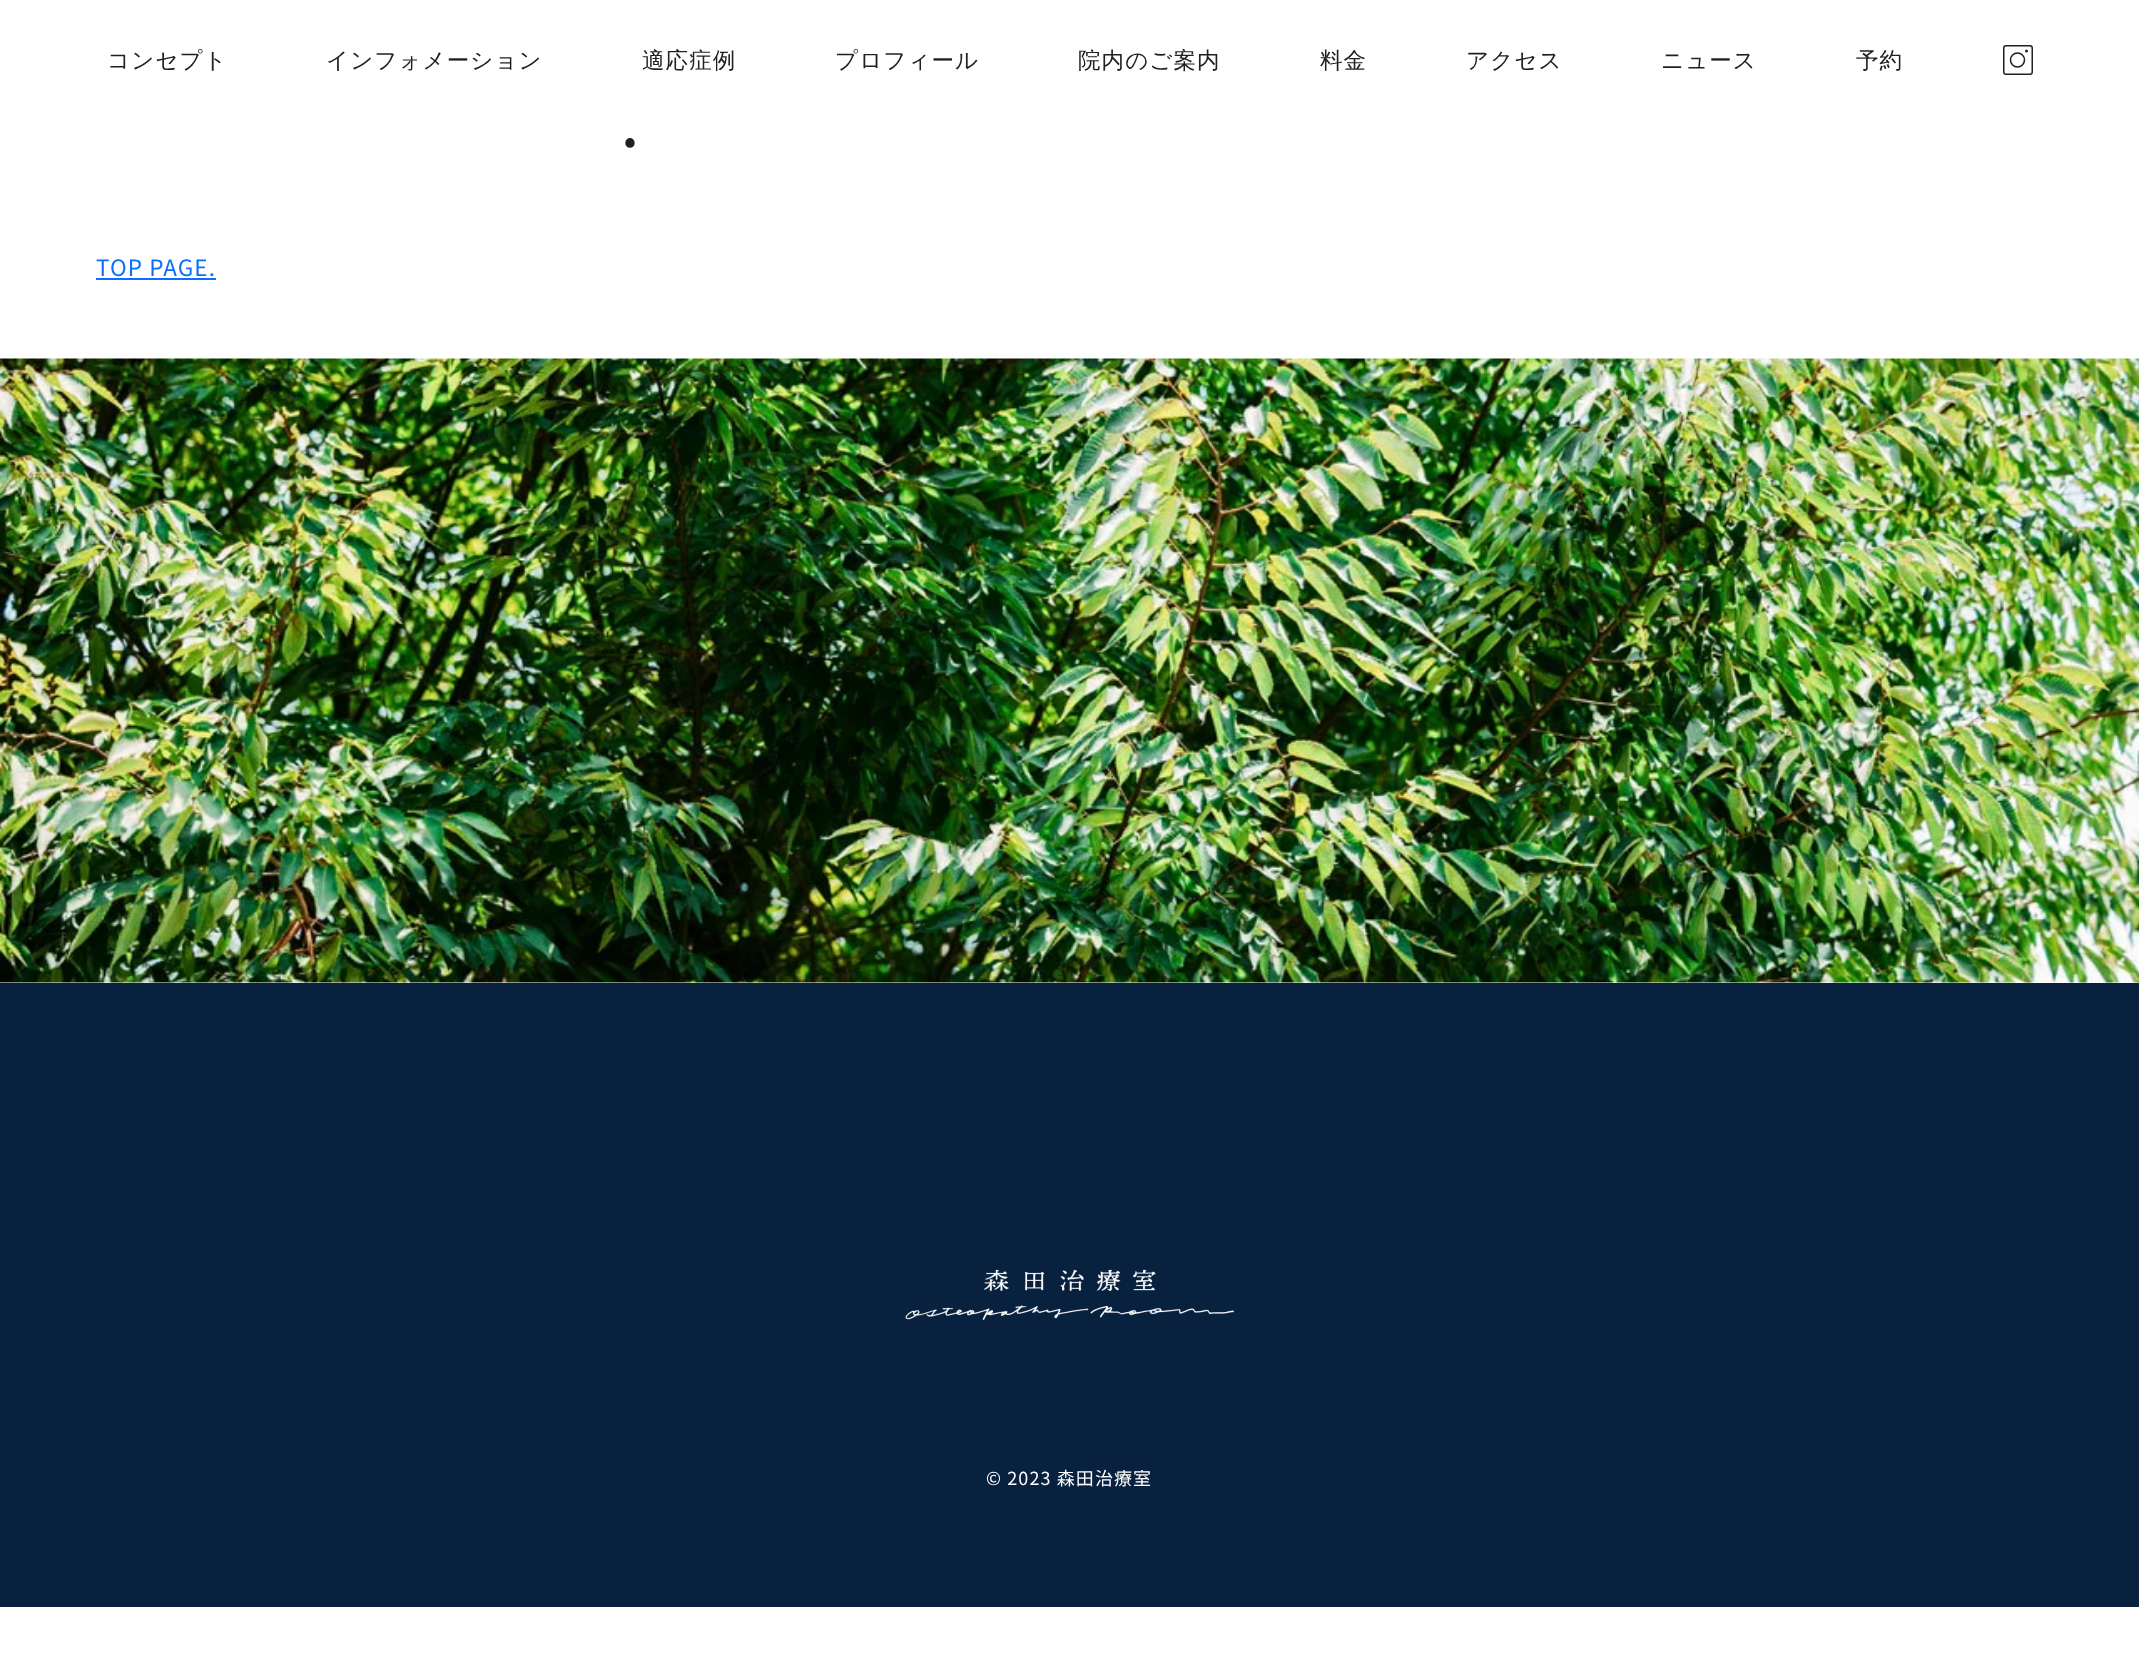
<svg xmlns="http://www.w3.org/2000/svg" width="2139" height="1668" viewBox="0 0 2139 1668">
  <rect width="100%" height="100%" fill="rgb(255,255,255)"/>
  <g font-family="WenQuanYi Zen Hei" font-size="22.5" font-weight="500" letter-spacing="1.1" fill="rgb(32,32,32)">
    <text x="107" y="68">コンセプト</text>
    <text x="326" y="68">インフォメーション</text>
    <text x="642" y="68">適応症例</text>
    <text x="835" y="68">プロフィール</text>
    <text x="1078" y="68">院内のご案内</text>
    <text x="1320" y="68">料金</text>
    <text x="1466" y="68">アクセス</text>
    <text x="1661" y="68">ニュース</text>
    <text x="1856" y="68">予約</text>
  </g>
  <rect x="2003.75" y="45.75" width="28.5" height="28.5" rx="2.25" fill="none" stroke="rgb(32,32,32)" stroke-width="1.5"/>
  <circle cx="2017.5" cy="60" r="7" fill="none" stroke="rgb(32,32,32)" stroke-width="1.5"/>
  <circle cx="2026.5" cy="51" r="1.5" fill="rgb(32,32,32)"/>
  <text x="621" y="147" font-family="Noto Sans JP" font-size="60" font-weight="500" letter-spacing="1.1" fill="rgb(32,32,32)">.</text>
  <text x="96" y="276" font-family="Noto Sans JP" font-size="22.5" letter-spacing="1.1" fill="rgb(13,110,253)">TOP PAGE.</text>
  <rect x="96" y="278" width="120" height="2" fill="rgb(13,110,253)"/>
  <image x="0" y="358" width="2139" height="625" href="pic1.png"/>
  <rect x="0" y="983" width="2139" height="624" fill="rgb(7,33,62)"/>
  <image x="905" y="1269" width="330" height="52" href="pic2.png"/>
  <text x="986" y="1485" font-family="Noto Sans JP" font-size="18" letter-spacing="1.1" fill="rgb(255,255,255)">© 2023 森田治療室</text>
</svg>
